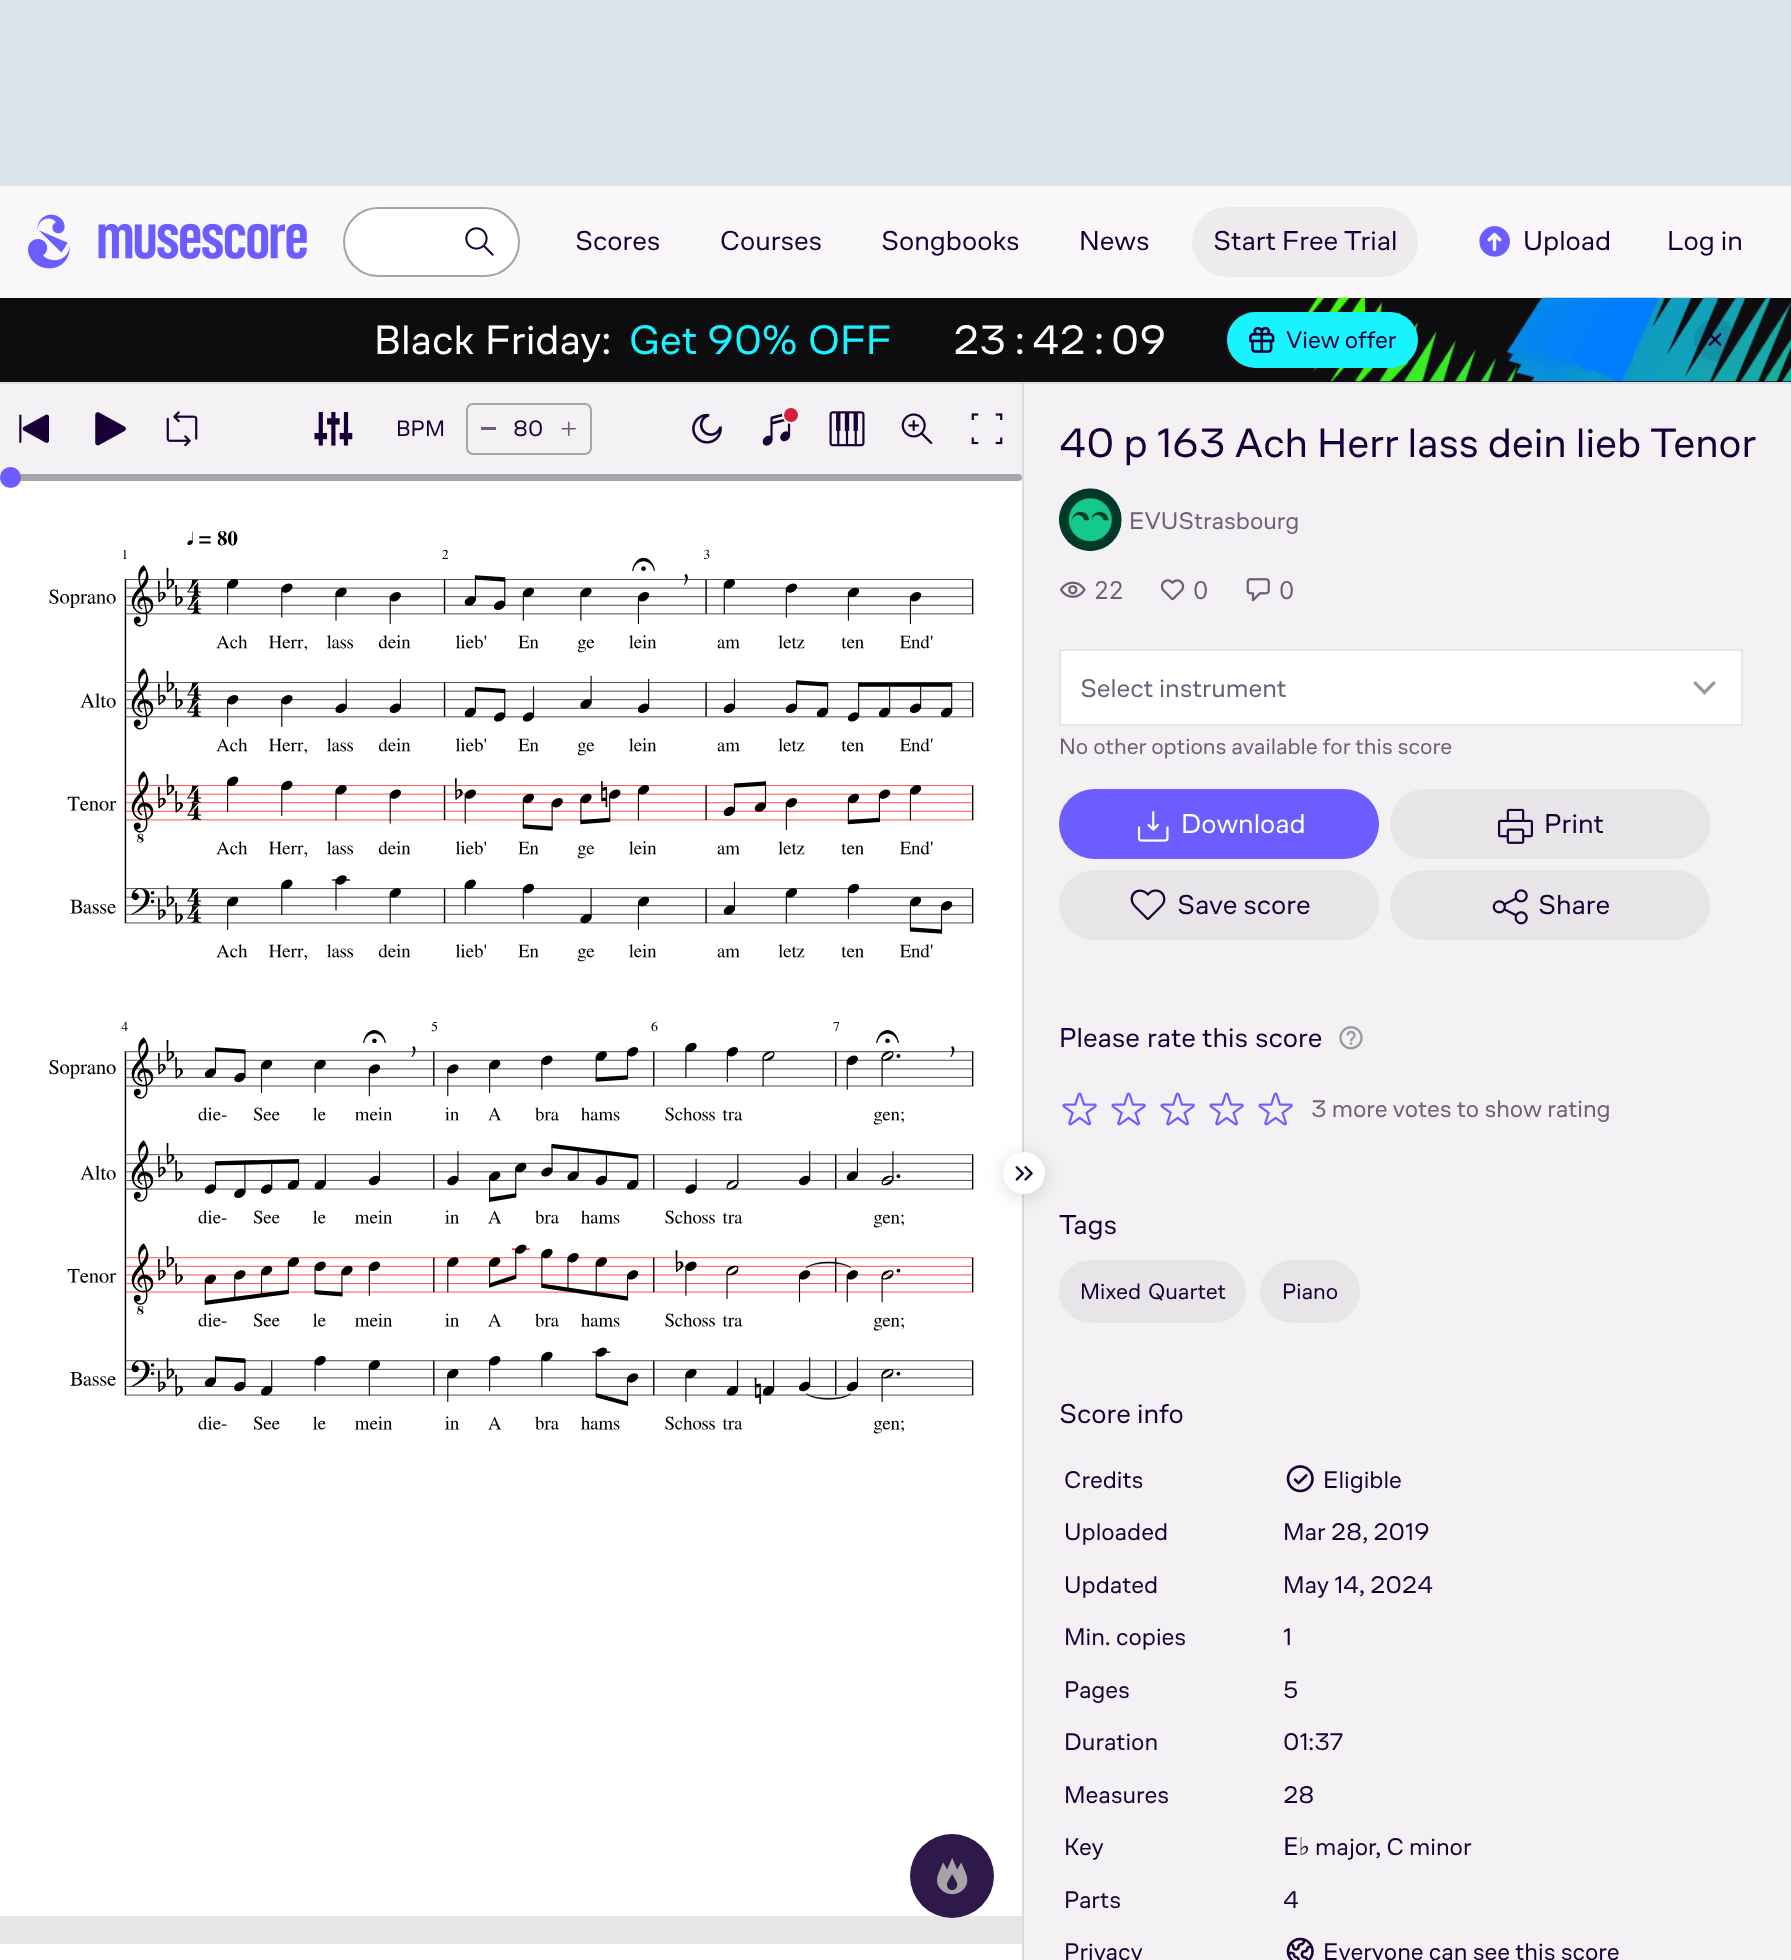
<svg xmlns="http://www.w3.org/2000/svg" width="1791" height="1960" viewBox="0 0 1791 1960">
  <rect width="100%" height="100%" fill="rgb(249,247,250)"/>
  <rect x="0" y="382" width="1791" height="1" fill="rgb(227,222,230)"/>
  <rect x="0" y="0" width="1791" height="186" fill="rgb(218,227,233)"/>
  <image x="28" y="214" width="279" height="55" href="pic1.png"/>
  <rect x="344" y="208" width="175" height="68" rx="34" fill="rgb(255,255,255)" stroke="rgb(167,164,169)" stroke-width="2"/>
  <image x="465" y="227" width="29" height="29" href="pic2.png"/>
  <g font-family="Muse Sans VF" font-size="28" fill="rgb(24,0,54)">
    <text x="575" y="250">Scores</text>
    <text x="720" y="250">Courses</text>
    <text x="881" y="250">Songbooks</text>
    <text x="1079" y="250">News</text>
  </g>
  <rect x="1192" y="207" width="226" height="70" rx="35" fill="rgb(237,235,238)"/>
  <text x="1213" y="250" font-family="Muse Sans VF" font-size="28" fill="rgb(24,0,54)">Start Free Trial</text>
  <image x="1479" y="226" width="31" height="31" href="pic3.png"/>
  <g font-family="Muse Sans VF" font-size="28" fill="rgb(24,0,54)">
    <text x="1523" y="250">Upload</text>
    <text x="1667" y="250">Log in</text>
  </g>
  <rect x="0" y="298" width="1791" height="84" fill="rgb(13,13,16)"/>
  <g font-family="Muse Sans VF" font-size="42" fill="rgb(255,255,255)">
    <text x="374" y="354">Black</text>
    <text x="485" y="354">Friday:</text>
  </g>
  <g font-family="Muse Sans VF" font-size="42" fill="rgb(25,243,255)">
    <text x="629" y="354">Get</text>
    <text x="707" y="354">90%</text>
    <text x="808" y="354">OFF</text>
  </g>
  <g font-family="Muse Sans VF" font-size="42" fill="rgb(255,255,255)">
    <text x="953" y="354">23 :</text>
    <text x="1032" y="354">42</text>
    <text x="1094" y="354">:</text>
    <text x="1111" y="354">09</text>
  </g>
  <image x="1307" y="297" width="484" height="85" href="pic4.png"/>
  <rect x="1227" y="312" width="191" height="56" rx="28" fill="rgb(25,243,255)"/>
  <image x="1249" y="326" width="26" height="27" href="pic5.png"/>
  <text x="1286" y="348" font-family="Muse Sans VF" font-size="24.5" fill="rgb(24,0,54)">View offer</text>
  <circle cx="1715" cy="340" r="21" fill="rgba(24,0,54,0.1)"/>
  <image x="1708" y="333" width="14" height="13" href="pic6.png"/>
  <rect x="0" y="1916" width="1022" height="28" fill="rgb(231,229,232)"/>
  <rect x="0" y="474" width="1022" height="1442" fill="rgb(255,255,255)"/>
  <rect x="0" y="474" width="1022" height="7" rx="3.5" fill="rgb(167,164,169)"/>
  <rect x="0" y="384" width="1022" height="90" fill="rgb(243,241,244)"/>
  <circle cx="10.5" cy="477.5" r="10.5" fill="rgb(107,93,254)"/>
  <image x="19" y="414" width="30" height="29" href="pic7.png"/>
  <image x="95" y="412" width="31" height="34" href="pic8.png"/>
  <image x="166" y="411" width="32" height="36" href="pic9.png"/>
  <image x="314" y="411" width="39" height="35" href="pic10.png"/>
  <text x="396" y="436" font-family="Muse Sans VF" font-size="22.75" fill="rgb(24,0,54)">BPM</text>
  <rect x="467" y="404" width="124" height="50" rx="6" fill="none" stroke="rgb(167,164,169)" stroke-width="2"/>
  <rect x="481" y="427" width="15" height="3" fill="rgb(110,95,121)"/>
  <text x="513" y="436" font-family="Muse Sans VF" font-size="22.75" fill="rgb(24,0,54)">80</text>
  <image x="561" y="421" width="15" height="15" href="pic11.png"/>
  <image x="692" y="413" width="30" height="31" href="pic12.png"/>
  <image x="762" y="413" width="29" height="33" href="pic13.png"/>
  <circle cx="791" cy="415" r="8" fill="rgb(211,33,57)" stroke="rgb(249,247,250)" stroke-width="2"/>
  <image x="829" y="411" width="36" height="36" href="pic14.png"/>
  <image x="901" y="413" width="32" height="32" href="pic15.png"/>
  <image x="971" y="413" width="32" height="32" href="pic16.png"/>
  <image x="49" y="531" width="925" height="903" href="pic17.png"/>
  <rect x="0" y="1944" width="1022" height="16" fill="rgb(255,255,255)"/>
  <circle cx="952" cy="1876" r="42" fill="rgba(24,0,54,0.9)"/>
  <image x="937" y="1858" width="31" height="37" href="pic18.png"/>
  <rect x="1024" y="384" width="767" height="1576" fill="rgb(243,241,244)"/>
  <rect x="0" y="383" width="1791" height="1" fill="rgb(221,217,225)"/>
  <rect x="1022" y="383" width="2" height="1577" fill="rgb(221,217,225)"/>
  <rect x="1003" y="1155" width="42" height="42" rx="21" fill="rgba(0,0,0,0.14)" filter="blur(9px)"/>
  <circle cx="1024" cy="1173" r="21" fill="rgb(255,255,255)"/>
  <image x="1015" y="1166" width="18" height="15" href="pic19.png"/>
  <rect x="1022" y="383" width="2" height="1" fill="rgb(201,195,208)"/>
  <text x="1059" y="457" font-family="Muse Sans VF" font-size="42" fill="rgb(24,0,54)">40 p 163 Ach Herr lass dein lieb Tenor</text>
  <image x="1058" y="488" width="64" height="64" href="pic20.png"/>
  <text x="1129" y="529" font-family="Muse Sans VF" font-size="24.5" fill="rgb(110,95,121)">EVUStrasbourg</text>
  <image x="1060" y="581" width="26" height="17" href="pic21.png"/>
  <text x="1094" y="599" font-family="Inter" font-size="24.5" fill="rgb(110,95,121)">22</text>
  <image x="1160" y="579" width="25" height="22" href="pic22.png"/>
  <text x="1193" y="599" font-family="Inter" font-size="24.5" fill="rgb(110,95,121)">0</text>
  <image x="1246" y="578" width="24" height="24" href="pic23.png"/>
  <text x="1279" y="599" font-family="Inter" font-size="24.5" fill="rgb(110,95,121)">0</text>
  <rect x="1060" y="650" width="682" height="75" fill="rgb(255,255,255)" stroke="rgb(231,229,232)" stroke-width="2"/>
  <text x="1080" y="697" font-family="Muse Sans VF" font-size="26.25" fill="rgb(110,95,121)">Select instrument</text>
  <path d="M1716 683L1704.5 695L1693 683L1695.5 681L1704.5 690L1713.5 681Z" fill="rgb(155,152,157)" fill-rule="evenodd"/>
  <text x="1059" y="754" font-family="Muse Sans VF" font-size="22.75" fill="rgb(110,95,121)">No other options available for this score</text>
  <rect x="1059" y="789" width="320" height="70" rx="35" fill="rgb(107,93,254)"/>
  <image x="1137" y="811" width="32" height="31" href="pic24.png"/>
  <text x="1181" y="833" font-family="Muse Sans VF" font-size="28" fill="rgb(255,255,255)">Download</text>
  <rect x="1390" y="789" width="320" height="70" rx="35" fill="rgb(231,229,232)"/>
  <image x="1498" y="808" width="35" height="36" href="pic25.png"/>
  <text x="1544" y="833" font-family="Muse Sans VF" font-size="28" fill="rgb(24,0,54)">Print</text>
  <rect x="1059" y="870" width="320" height="70" rx="35" fill="rgb(231,229,232)"/>
  <image x="1130" y="889" width="36" height="32" href="pic26.png"/>
  <text x="1177" y="914" font-family="Muse Sans VF" font-size="28" fill="rgb(24,0,54)">Save score</text>
  <rect x="1390" y="870" width="320" height="70" rx="35" fill="rgb(231,229,232)"/>
  <image x="1492" y="889" width="36" height="36" href="pic27.png"/>
  <g font-family="Muse Sans VF" font-size="28" fill="rgb(24,0,54)">
    <text x="1538" y="914">Share</text>
    <text x="1059" y="1047">Please</text>
    <text x="1147" y="1047">rate</text>
    <text x="1202" y="1047">this</text>
    <text x="1255" y="1047">score</text>
  </g>
  <image x="1339" y="1026" width="24" height="24" href="pic28.png"/>
  <image x="1062" y="1092" width="35" height="34" href="pic29.png"/>
  <image x="1111" y="1092" width="35" height="34" href="pic29.png"/>
  <image x="1160" y="1092" width="35" height="34" href="pic29.png"/>
  <image x="1209" y="1092" width="35" height="34" href="pic29.png"/>
  <image x="1258" y="1092" width="35" height="34" href="pic29.png"/>
  <text x="1311" y="1117" font-family="Muse Sans VF" font-size="24.5" fill="rgb(110,95,121)">3 more votes to show rating</text>
  <text x="1059" y="1234" font-family="Muse Sans VF" font-size="28" fill="rgb(24,0,54)">Tags</text>
  <rect x="1059" y="1260" width="187" height="63" rx="31.5" fill="rgb(231,229,232)"/>
  <text x="1080" y="1299" word-spacing="2" font-family="Muse Sans VF" font-size="22.75" fill="rgb(24,0,54)">Mixed Quartet</text>
  <rect x="1260" y="1260" width="100" height="63" rx="31.5" fill="rgb(231,229,232)"/>
  <text x="1282" y="1299" font-family="Muse Sans VF" font-size="22.75" fill="rgb(24,0,54)">Piano</text>
  <g font-family="Muse Sans VF" font-size="28" fill="rgb(24,0,54)">
    <text x="1059" y="1423">Score</text>
    <text x="1137" y="1423">info</text>
  </g>
  <text x="1064" y="1488" font-family="Muse Sans VF" font-size="24.5" fill="rgb(24,0,54)">Credits</text>
  <image x="1286" y="1465" width="28" height="28" href="pic30.png"/>
  <g font-family="Muse Sans VF" font-size="24.5" fill="rgb(24,0,54)">
    <text x="1323" y="1488">Eligible</text>
    <text x="1064" y="1540">Uploaded</text>
    <text x="1283" y="1540">Mar 28, 2019</text>
    <text x="1064" y="1593">Updated</text>
    <text x="1283" y="1593">May 14, 2024</text>
    <text x="1064" y="1645">Min. copies</text>
    <text x="1283" y="1645">1</text>
    <text x="1064" y="1698">Pages</text>
    <text x="1283" y="1698">5</text>
    <text x="1064" y="1750">Duration</text>
    <text x="1283" y="1750">01:37</text>
    <text x="1064" y="1803">Measures</text>
    <text x="1283" y="1803">28</text>
    <text x="1064" y="1855">Key</text>
  </g>
  <text x="1283" y="1855" font-family="DejaVu Sans" font-size="24.5" fill="rgb(24,0,54)">E♭</text>
  <g font-family="Muse Sans VF" font-size="24.5" fill="rgb(24,0,54)">
    <text x="1315" y="1855">major, C minor</text>
    <text x="1064" y="1908">Parts</text>
    <text x="1283" y="1908">4</text>
    <text x="1064" y="1960">Privacy</text>
  </g>
  <image x="1286" y="1937" width="28" height="23" href="pic31.png"/>
  <text x="1323" y="1960" font-family="Muse Sans VF" font-size="24.5" fill="rgb(24,0,54)">Everyone can see this score</text>
</svg>
